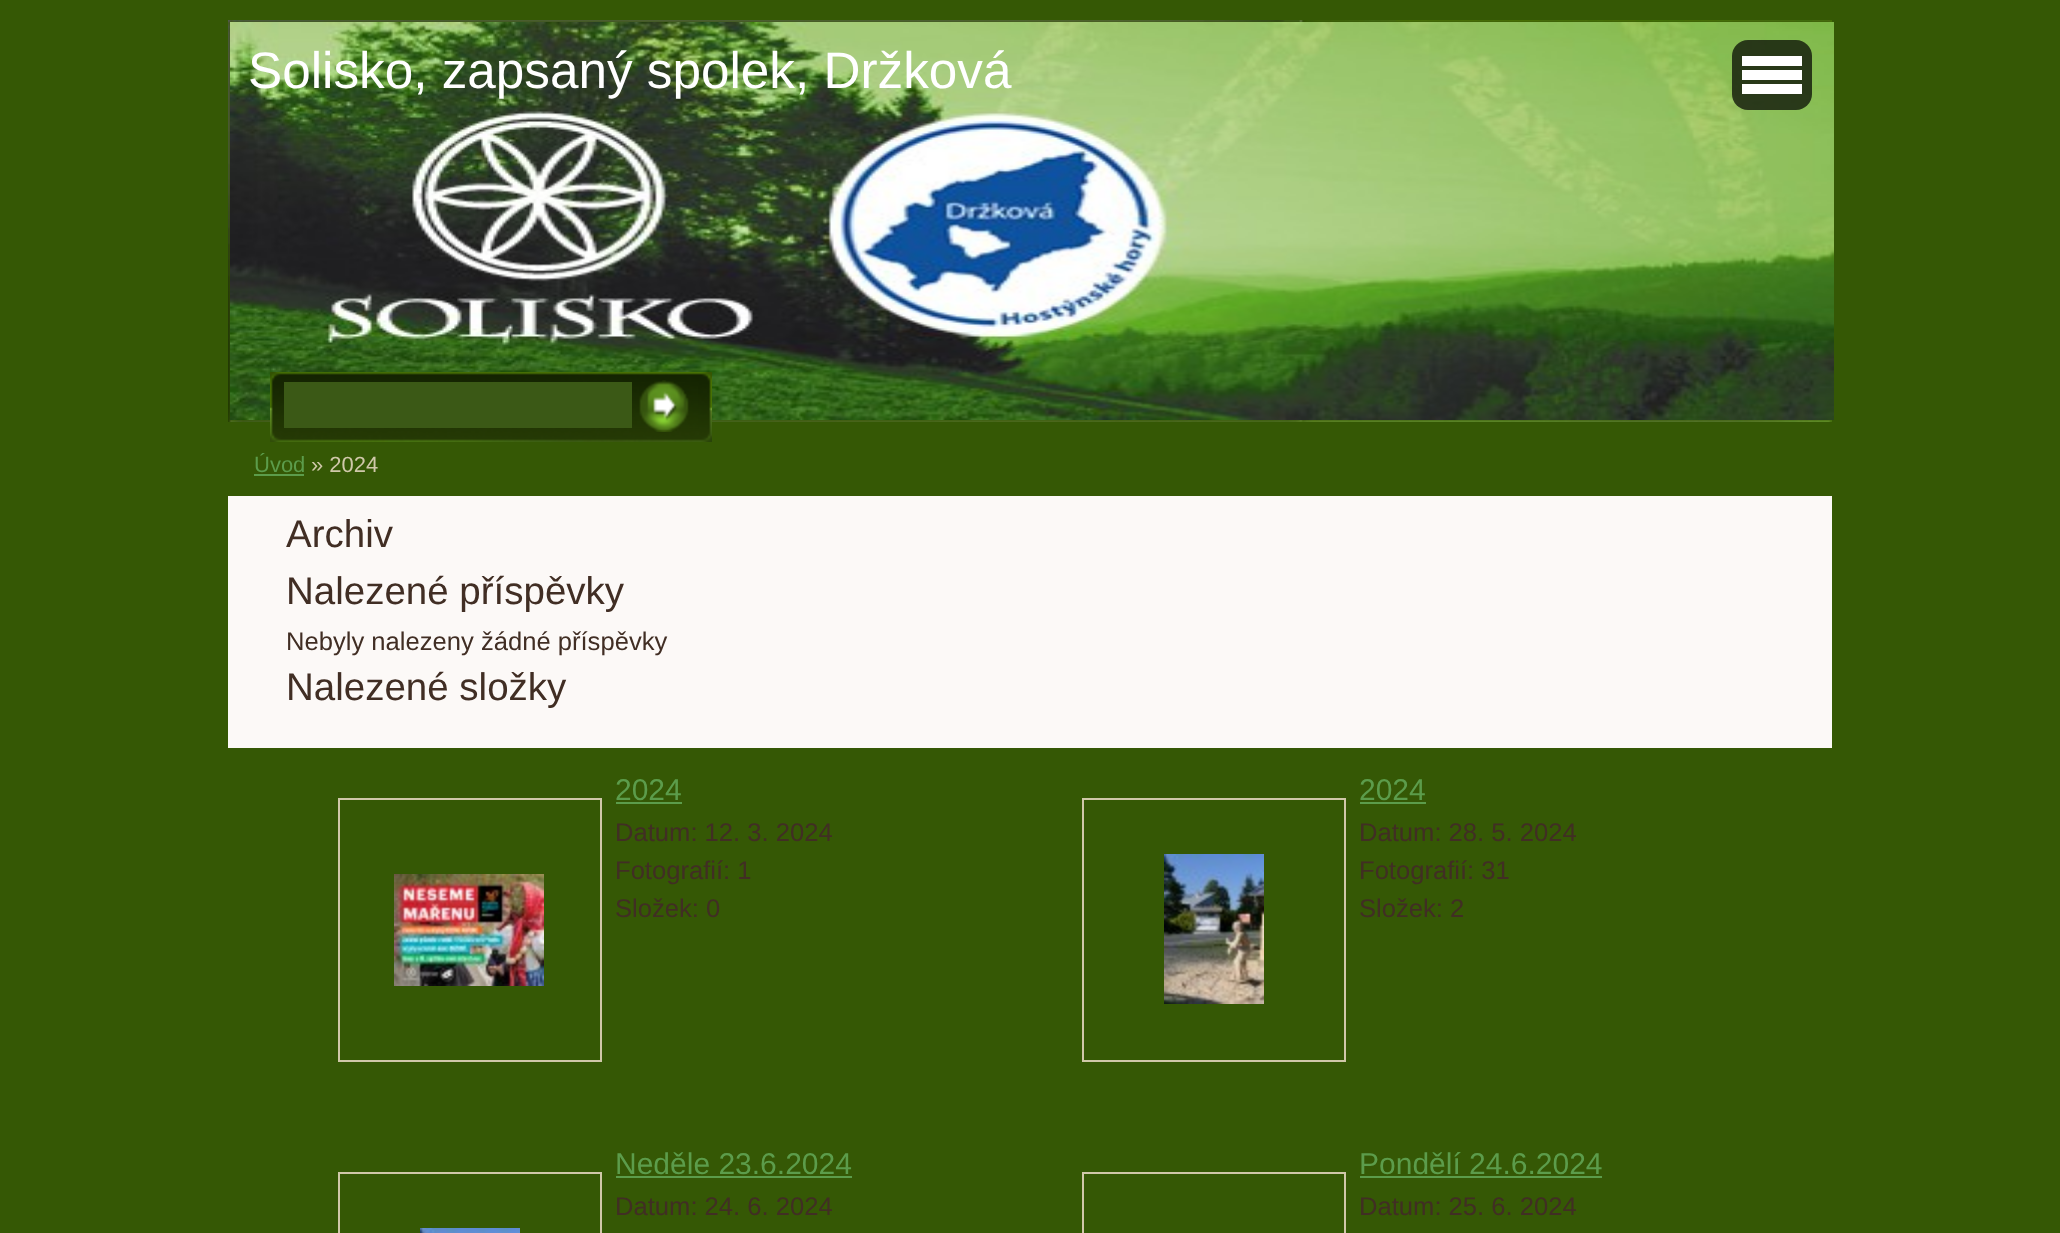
<svg xmlns="http://www.w3.org/2000/svg" width="2060" height="1233" viewBox="0 0 2060 1233">
  <rect width="100%" height="100%" fill="rgb(53,88,5)"/>
  <image x="228" y="20" width="1604" height="402" href="pic1.png"/>
  <image x="230" y="22" width="1604" height="398" href="pic2.png"/>
  <text x="248" y="88" font-family="Liberation Sans" font-size="51.25" fill="rgb(255,255,255)">Solisko, zapsaný spolek, Držková</text>
  <rect x="1732" y="40" width="80" height="70" rx="16" fill="rgba(0,0,0,0.7)"/>
  <rect x="1742" y="56" width="60" height="10" fill="rgb(255,255,255)"/>
  <rect x="1742" y="70" width="60" height="10" fill="rgb(255,255,255)"/>
  <rect x="1742" y="84" width="60" height="10" fill="rgb(255,255,255)"/>
  <image x="270" y="372" width="442" height="70" href="pic3.png"/>
  <image x="632" y="382" width="66" height="46" href="pic4.png"/>
  <rect x="284" y="382" width="348" height="46" fill="rgb(59,89,22)"/>
  <image x="639" y="380" width="50" height="52" href="pic5.png"/>
  <text x="254" y="472" font-family="Liberation Sans" font-size="22" fill="rgb(92,156,75)">Úvod</text>
  <rect x="254" y="474" width="50" height="2" fill="rgb(92,156,75)"/>
  <text x="311" y="472" font-family="Liberation Sans" font-size="22" fill="rgb(208,200,170)">» 2024</text>
  <rect x="228" y="496" width="1604" height="252" fill="rgb(252,249,247)"/>
  <g font-family="Liberation Sans" font-size="38.5" fill="rgb(65,46,36)">
    <text>
      <tspan x="286" y="547">Archiv</tspan>
      <tspan x="286" y="604">Nalezené příspěvky</tspan>
    </text>
  </g>
  <text x="286" y="650" font-family="Liberation Sans" font-size="25.6" fill="rgb(65,46,36)">Nebyly nalezeny žádné příspěvky</text>
  <text x="286" y="700" font-family="Liberation Sans" font-size="38.5" fill="rgb(65,46,36)">Nalezené složky</text>
  <rect x="339" y="799" width="262" height="262" fill="none" stroke="rgb(208,200,170)" stroke-width="2"/>
  <image x="394" y="874" width="150" height="112" href="pic6.png"/>
  <text x="615" y="800" font-family="Liberation Sans" font-size="30" fill="rgb(92,156,75)">2024</text>
  <rect x="616" y="802" width="66" height="2" fill="rgb(92,156,75)"/>
  <g font-family="Liberation Sans" font-size="25.6" fill="rgb(65,46,36)">
    <text>
      <tspan x="615" y="841">Datum: 12. 3. 2024</tspan>
      <tspan x="615" y="879">Fotografií: 1</tspan>
      <tspan x="615" y="917">Složek: 0</tspan>
    </text>
  </g>
  <rect x="1083" y="799" width="262" height="262" fill="none" stroke="rgb(208,200,170)" stroke-width="2"/>
  <image x="1164" y="854" width="100" height="150" href="pic7.png"/>
  <text x="1359" y="800" font-family="Liberation Sans" font-size="30" fill="rgb(92,156,75)">2024</text>
  <rect x="1360" y="802" width="66" height="2" fill="rgb(92,156,75)"/>
  <g font-family="Liberation Sans" font-size="25.6" fill="rgb(65,46,36)">
    <text>
      <tspan x="1359" y="841">Datum: 28. 5. 2024</tspan>
      <tspan x="1359" y="879">Fotografií: 31</tspan>
      <tspan x="1359" y="917">Složek: 2</tspan>
    </text>
  </g>
  <rect x="339" y="1173" width="262" height="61" fill="none" stroke="rgb(208,200,170)" stroke-width="2"/>
  <image x="420" y="1228" width="100" height="5" href="pic8.png"/>
  <text x="615" y="1174" font-family="Liberation Sans" font-size="30" fill="rgb(92,156,75)">Neděle 23.6.2024</text>
  <rect x="616" y="1176" width="236" height="2" fill="rgb(92,156,75)"/>
  <text x="615" y="1215" font-family="Liberation Sans" font-size="25.6" fill="rgb(65,46,36)">Datum: 24. 6. 2024</text>
  <rect x="1083" y="1173" width="262" height="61" fill="none" stroke="rgb(208,200,170)" stroke-width="2"/>
  <text x="1359" y="1174" font-family="Liberation Sans" font-size="30" fill="rgb(92,156,75)">Pondělí 24.6.2024</text>
  <rect x="1360" y="1176" width="242" height="2" fill="rgb(92,156,75)"/>
  <text x="1359" y="1215" font-family="Liberation Sans" font-size="25.6" fill="rgb(65,46,36)">Datum: 25. 6. 2024</text>
</svg>
